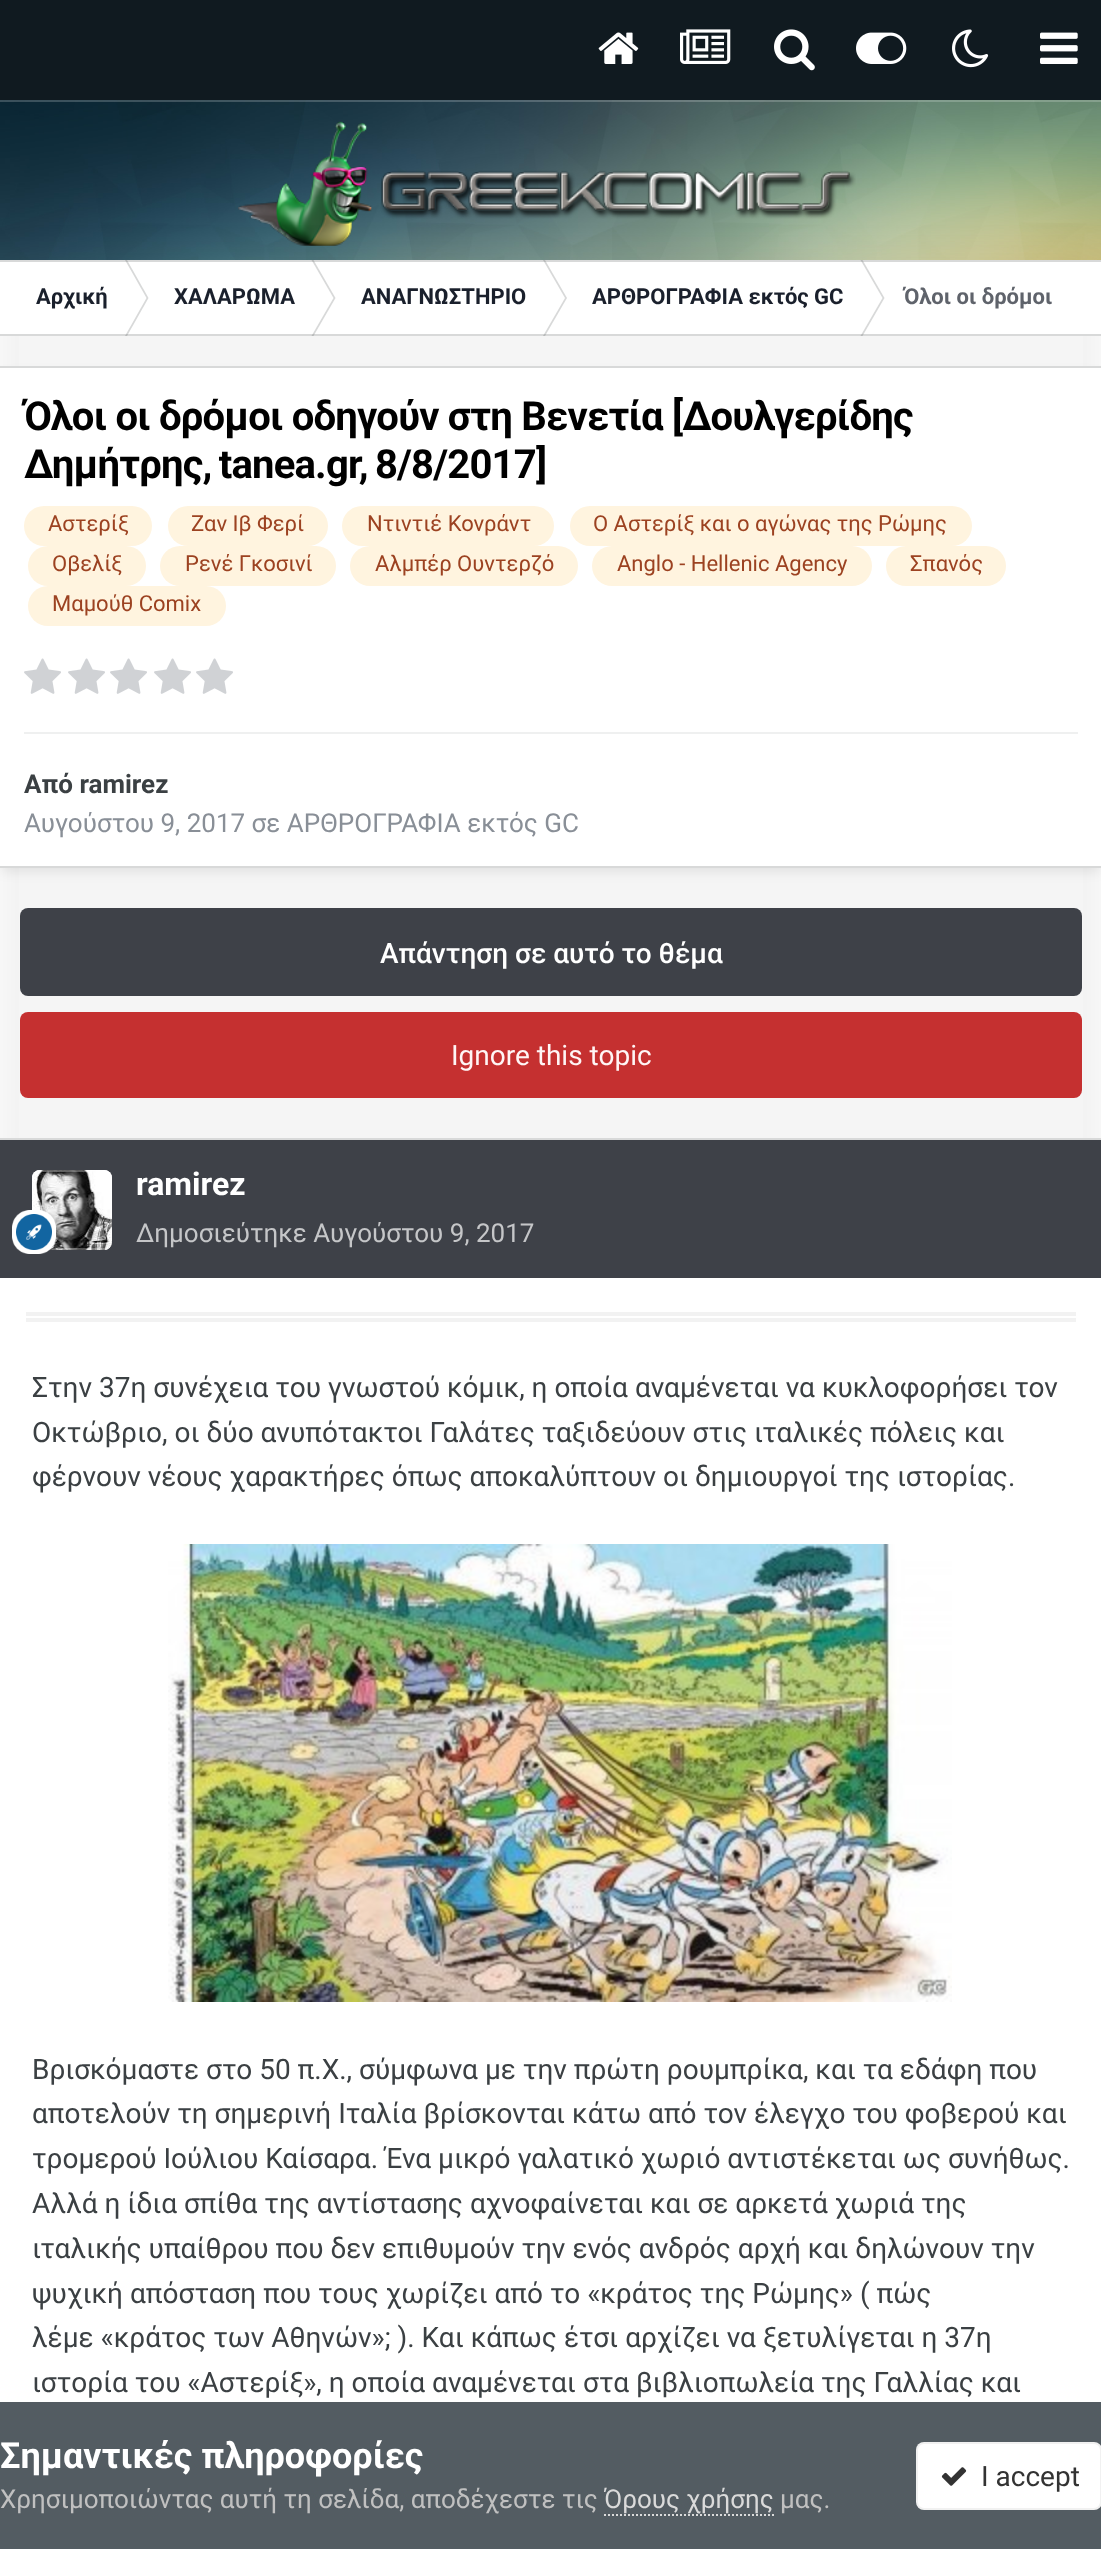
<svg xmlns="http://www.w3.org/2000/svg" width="1101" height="2549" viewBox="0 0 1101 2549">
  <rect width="100%" height="100%" fill="rgb(255,255,255)"/>
  <image x="0" y="100" width="1101" height="160" href="pic7.png"/>
  <rect x="0" y="100" width="1101" height="2" fill="rgba(255,255,255,0.2)"/>
  <rect x="0" y="0" width="1101" height="100" fill="rgb(16,26,32)"/>
  <image x="598" y="32" width="41" height="32" href="pic1.png"/>
  <image x="680" y="29" width="51" height="35" href="pic2.png"/>
  <image x="774" y="29" width="41" height="42" href="pic3.png"/>
  <image x="856" y="32" width="51" height="32" href="pic4.png"/>
  <image x="952" y="29" width="37" height="39" href="pic5.png"/>
  <image x="1040" y="32" width="38" height="32" href="pic6.png"/>
  <image x="238" y="121" width="618" height="125" href="pic8.png"/>
  <rect x="0" y="260" width="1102" height="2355" rx="6" fill="rgba(0,0,0,0.06)" filter="blur(20px)"/>
  <rect x="19" y="336" width="1064" height="802" fill="rgb(245,245,245)"/>
  <rect x="0" y="260" width="1101" height="76" fill="rgb(255,255,255)"/>
  <path d="M125 260H127L148.5 298H146.5Z" fill="rgb(216,217,217)"/>
  <path d="M311.5 260H313.5L335.5 298H333.5Z" fill="rgb(216,217,217)"/>
  <path d="M543 260H545L567 298H565Z" fill="rgb(216,217,217)"/>
  <path d="M860.5 260H862.5L884.5 298H882.5Z" fill="rgb(216,217,217)"/>
  <rect x="0" y="260" width="1101" height="2" fill="rgba(59,64,67,0.2)"/>
  <path d="M125 336H127L148.5 298H146.5Z" fill="rgb(216,217,217)"/>
  <path d="M311.5 336H313.5L335.5 298H333.5Z" fill="rgb(216,217,217)"/>
  <path d="M543 336H545L567 298H565Z" fill="rgb(216,217,217)"/>
  <path d="M860.5 336H862.5L884.5 298H882.5Z" fill="rgb(216,217,217)"/>
  <rect x="0" y="334" width="1101" height="2" fill="rgba(59,64,67,0.2)"/>
  <g font-family="Roboto" font-size="22" font-weight="bold" fill="rgb(26,32,44)">
    <text x="36" y="304">Αρχική</text>
    <text x="174" y="304">ΧΑΛΑΡΩΜΑ</text>
    <text x="361" y="304">ΑΝΑΓΝΩΣΤΗΡΙΟ</text>
    <text x="592" y="304">ΑΡΘΡΟΓΡΑΦΙΑ εκτός GC</text>
  </g>
  <text x="904" y="304" font-family="Roboto" font-size="22" font-weight="bold" fill="rgb(95,99,107)">Όλοι οι δρόμοι</text>
  <rect x="2" y="374" width="1098" height="498" fill="rgba(0,0,0,0.08)" filter="blur(6px)"/>
  <rect x="0" y="368" width="1101" height="498" fill="rgb(255,255,255)"/>
  <rect x="0" y="366" width="1101" height="2" fill="rgb(216,217,217)"/>
  <rect x="0" y="866" width="1101" height="2" fill="rgb(216,217,217)"/>
  <g font-family="Roboto" font-size="40" font-weight="bold" letter-spacing="-0.8" fill="rgb(0,0,0)">
    <text>
      <tspan x="24" y="430">Όλοι οι δρόμοι οδηγούν στη Βενετία [Δουλγερίδης</tspan>
      <tspan x="24" y="478" word-spacing="-2">Δημήτρης, tanea.gr, 8/8/2017]</tspan>
    </text>
  </g>
  <rect x="24" y="506" width="128" height="40" rx="20" fill="rgb(255,244,223)"/>
  <text x="48" y="531" font-family="Roboto" font-size="22" fill="rgb(156,66,33)">Αστερίξ</text>
  <rect x="168" y="506" width="160" height="40" rx="20" fill="rgb(255,244,223)"/>
  <text x="191" y="531" font-family="Roboto" font-size="22" fill="rgb(156,66,33)">Ζαν Ιβ Φερί</text>
  <rect x="342" y="506" width="212" height="40" rx="20" fill="rgb(255,244,223)"/>
  <text x="367" y="531" font-family="Roboto" font-size="22" fill="rgb(156,66,33)">Ντιντιέ Κονράντ</text>
  <rect x="570" y="506" width="402" height="40" rx="20" fill="rgb(255,244,223)"/>
  <text x="593" y="531" font-family="Roboto" font-size="22" fill="rgb(156,66,33)">Ο Αστερίξ και ο αγώνας της Ρώμης</text>
  <rect x="28" y="546" width="118" height="40" rx="20" fill="rgb(255,244,223)"/>
  <text x="52" y="571" font-family="Roboto" font-size="22" fill="rgb(156,66,33)">Οβελίξ</text>
  <rect x="160" y="546" width="176" height="40" rx="20" fill="rgb(255,244,223)"/>
  <text x="185" y="571" font-family="Roboto" font-size="22" fill="rgb(156,66,33)">Ρενέ Γκοσινί</text>
  <rect x="350" y="546" width="228" height="40" rx="20" fill="rgb(255,244,223)"/>
  <text x="375" y="571" font-family="Roboto" font-size="22" fill="rgb(156,66,33)">Αλμπέρ Ουντερζό</text>
  <rect x="592" y="546" width="280" height="40" rx="20" fill="rgb(255,244,223)"/>
  <text x="617" y="571" font-family="Roboto" font-size="22" fill="rgb(156,66,33)">Anglo - Hellenic Agency</text>
  <rect x="886" y="546" width="120" height="40" rx="20" fill="rgb(255,244,223)"/>
  <text x="910" y="571" font-family="Roboto" font-size="22" fill="rgb(156,66,33)">Σπανός</text>
  <rect x="28" y="586" width="198" height="40" rx="20" fill="rgb(255,244,223)"/>
  <text x="52" y="611" font-family="Roboto" font-size="22" fill="rgb(156,66,33)">Μαμούθ Comix</text>
  <image x="24" y="658" width="37" height="36" href="pic9.png"/>
  <image x="68" y="658" width="37" height="36" href="pic9.png"/>
  <image x="110" y="658" width="37" height="36" href="pic9.png"/>
  <image x="154" y="658" width="37" height="36" href="pic9.png"/>
  <image x="196" y="658" width="37" height="36" href="pic9.png"/>
  <rect x="24" y="732" width="1054" height="2" fill="rgb(239,240,240)"/>
  <text x="24" y="793" font-family="Roboto" font-size="26" font-weight="bold" fill="rgb(59,64,67)">Από ramirez</text>
  <text x="24" y="832" font-family="Roboto" font-size="26" fill="rgb(137,143,151)">Αυγούστου 9, 2017 σε ΑΡΘΡΟΓΡΑΦΙΑ εκτός GC</text>
  <rect x="20" y="908" width="1062" height="88" rx="8" fill="rgb(62,65,72)"/>
  <text x="380" y="963" font-family="Roboto" font-size="28" font-weight="500" fill="rgb(255,255,255)">Απάντηση σε αυτό το θέμα</text>
  <rect x="20" y="1012" width="1062" height="86" rx="8" fill="rgb(197,48,48)"/>
  <text x="451" y="1065" font-family="Roboto" font-size="28" fill="rgb(255,245,245)">Ignore this topic</text>
  <rect x="0" y="1278" width="1101" height="1124" fill="rgb(255,255,255)"/>
  <rect x="0" y="1138" width="1101" height="2" fill="rgb(216,217,217)"/>
  <rect x="0" y="1140" width="1101" height="138" fill="rgb(62,65,72)"/>
  <rect x="32" y="1170" width="80" height="80" rx="8" fill="rgb(255,255,255)"/>
  <image x="32" y="1170" width="80" height="80" href="pic10.png"/>
  <rect x="33" y="1171" width="78" height="78" rx="7" fill="none" stroke="rgba(255,255,255,0.3)" stroke-width="2"/>
  <image x="12" y="1210" width="44" height="44" href="pic11.png"/>
  <text x="136" y="1195" font-family="Roboto" font-size="32" font-weight="bold" fill="rgb(255,255,255)">ramirez</text>
  <text x="136" y="1242" font-family="Roboto" font-size="26" fill="rgb(197,198,200)">Δημοσιεύτηκε Αυγούστου 9, 2017</text>
  <rect x="26" y="1312" width="1050" height="4" fill="rgb(242,242,242)"/>
  <rect x="26" y="1318" width="1050" height="4" fill="rgb(242,242,242)"/>
  <g font-family="Roboto" font-size="28" fill="rgb(59,64,67)">
    <text>
      <tspan x="32" y="1397">Στην 37η συνέχεια του γνωστού κόμικ, η οποία αναμένεται να κυκλοφορήσει τον</tspan>
      <tspan x="32" y="1442">Οκτώβριο, οι δύο ανυπότακτοι Γαλάτες ταξιδεύουν στις ιταλικές πόλεις και</tspan>
      <tspan x="32" y="1486">φέρνουν νέους χαρακτήρες όπως αποκαλύπτουν οι δημιουργοί της ιστορίας.</tspan>
    </text>
  </g>
  <image x="168" y="1544" width="784" height="458" href="pic12.png"/>
  <g font-family="Roboto" font-size="28" fill="rgb(59,64,67)">
    <text>
      <tspan x="32" y="2079">Βρισκόμαστε στο 50 π.Χ., σύμφωνα με την πρώτη ρουμπρίκα, και τα εδάφη που</tspan>
      <tspan x="32" y="2123">αποτελούν τη σημερινή Ιταλία βρίσκονται κάτω από τον έλεγχο του φοβερού και</tspan>
      <tspan x="32" y="2168">τρομερού Ιούλιου Καίσαρα. Ένα μικρό γαλατικό χωριό αντιστέκεται ως συνήθως.</tspan>
      <tspan x="32" y="2213">Αλλά η ίδια σπίθα της αντίστασης αχνοφαίνεται και σε αρκετά χωριά της</tspan>
      <tspan x="32" y="2258">ιταλικής υπαίθρου που δεν επιθυμούν την ενός ανδρός αρχή και δηλώνουν την</tspan>
      <tspan x="32" y="2303">ψυχική απόσταση που τους χωρίζει από το «κράτος της Ρώμης» ( πώς</tspan>
      <tspan x="32" y="2347">λέμε «κράτος των Αθηνών»; ). Και κάπως έτσι αρχίζει να ξετυλίγεται η 37η</tspan>
      <tspan x="32" y="2392">ιστορία του «Αστερίξ», η οποία αναμένεται στα βιβλιοπωλεία της Γαλλίας και</tspan>
    </text>
  </g>
  <rect x="0" y="2402" width="1101" height="147" fill="rgb(83,92,98)"/>
  <text x="0" y="2468" font-family="Roboto" font-size="36" font-weight="bold" fill="rgb(255,255,255)">Σημαντικές πληροφορίες</text>
  <text x="0" y="2508" font-family="Roboto" font-size="26" fill="rgb(192,192,192)">Χρησιμοποιώντας αυτή τη σελίδα, αποδέχεστε τις</text>
  <text x="604" y="2508" font-family="Roboto" font-size="26" fill="rgb(218,218,218)">Όρους χρήσης</text>
  <path d="M604 2515H774" fill="none" stroke="rgb(218,218,218)" stroke-width="2" stroke-dasharray="2 2"/>
  <text x="780" y="2508" font-family="Roboto" font-size="26" fill="rgb(192,192,192)">μας.</text>
  <rect x="916" y="2442" width="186" height="68" rx="8" fill="rgb(255,255,255)"/>
  <rect x="917" y="2443" width="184" height="66" rx="7" fill="none" stroke="rgba(51,51,51,0.07)" stroke-width="2"/>
  <image x="941" y="2467" width="26" height="19" href="pic13.png"/>
  <text x="981" y="2486" font-family="Roboto" font-size="28" fill="rgb(51,51,51)">I accept</text>
</svg>
